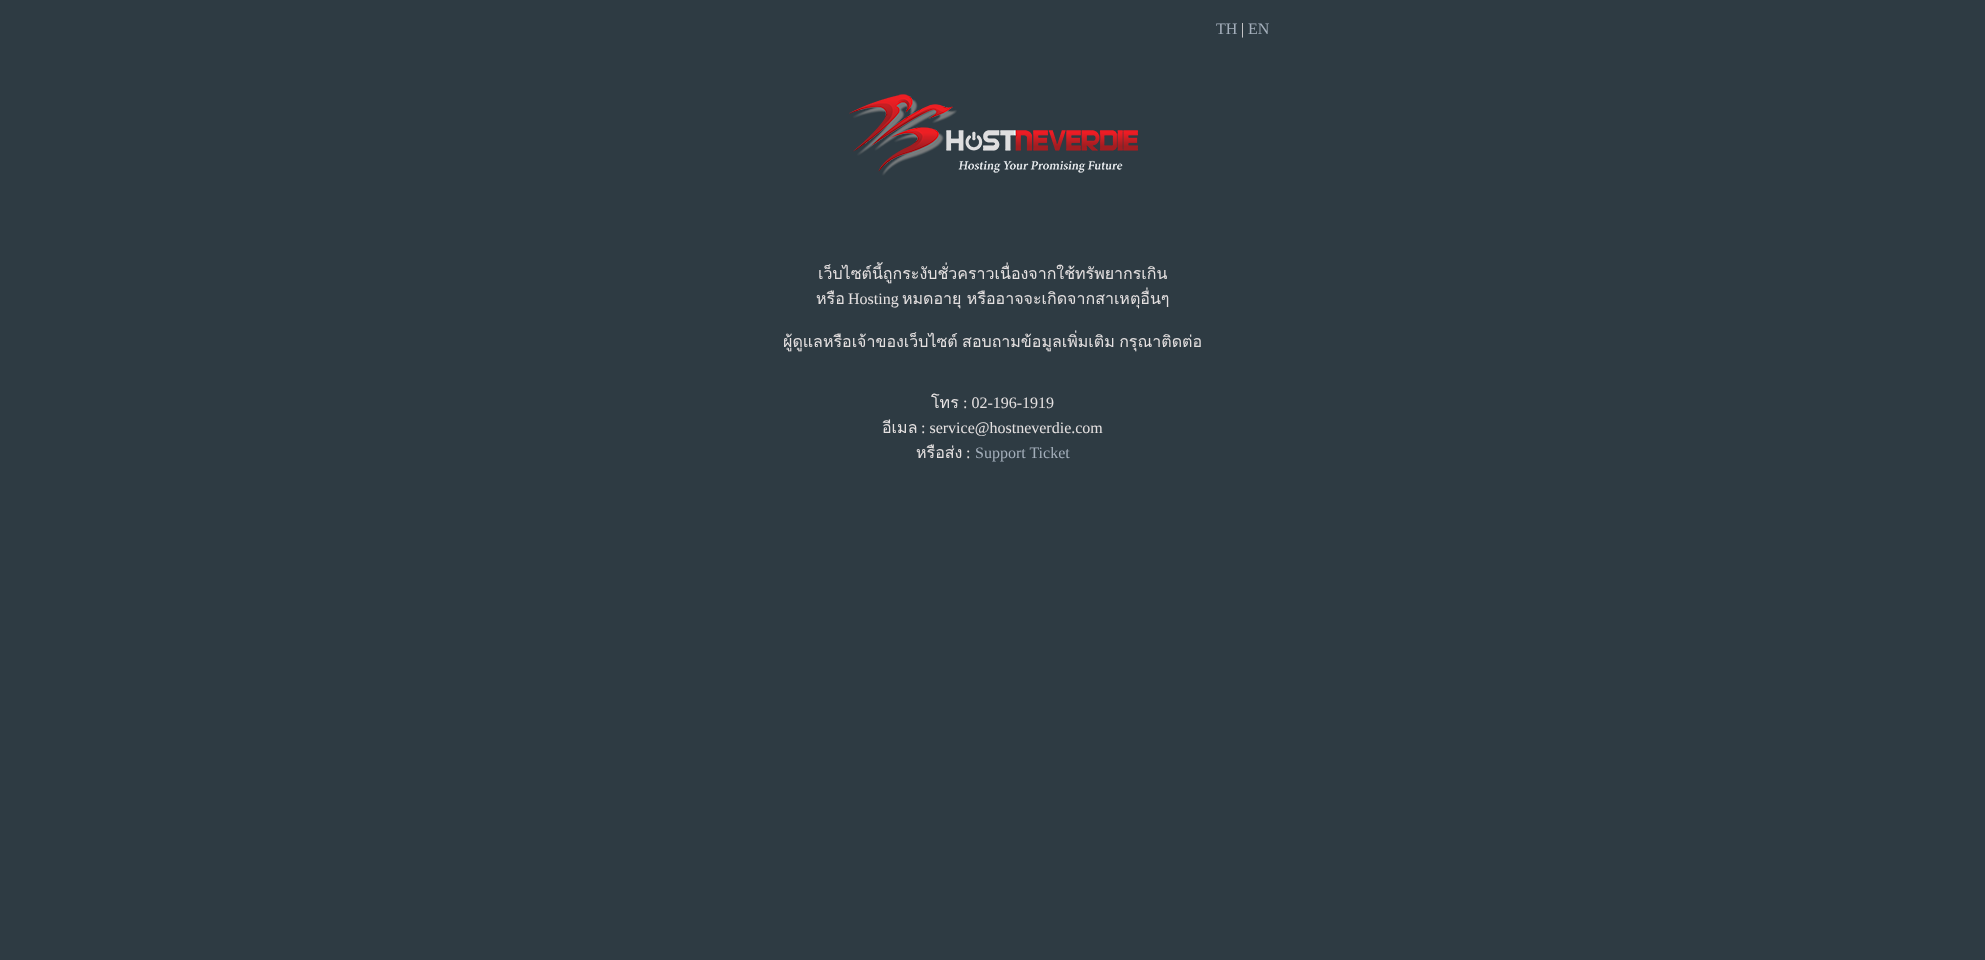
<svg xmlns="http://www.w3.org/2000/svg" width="1985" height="960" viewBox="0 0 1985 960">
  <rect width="100%" height="100%" fill="rgb(46,59,67)"/>
  <text x="1216" y="34" font-family="Liberation Serif" font-size="16" fill="rgb(164,175,187)">TH</text>
  <text x="1241" y="34" font-family="Liberation Serif" font-size="16" fill="rgb(229,225,225)">|</text>
  <text x="1248" y="34" font-family="Liberation Serif" font-size="16" fill="rgb(164,175,187)">EN</text>
  <image x="849" y="94" width="289" height="82" href="pic1.png"/>
  <g font-family="Loma" font-size="16" fill="rgb(229,225,225)">
    <text x="818" y="279">เว็บไซต์นี้ถูกระงับชั่วคราวเนื่องจากใช้ทรัพยากรเกิน</text>
    <text x="816" y="304">หรือ</text>
  </g>
  <text x="848" y="304" font-family="Liberation Serif" font-size="16" fill="rgb(229,225,225)">Hosting</text>
  <g font-family="Loma" font-size="16" fill="rgb(229,225,225)">
    <text x="902" y="304">หมดอายุ หรืออาจจะเกิดจากสาเหตุอื่นๆ</text>
    <text x="783" y="347" word-spacing="-1">ผู้ดูแลหรือเจ้าของเว็บไซต์ สอบถามข้อมูลเพิ่มเติม กรุณาติดต่อ</text>
    <text x="931" y="408">โทร</text>
  </g>
  <text x="963" y="408" font-family="Liberation Serif" font-size="16" fill="rgb(229,225,225)">: 02-196-1919</text>
  <text x="882" y="433" font-family="Loma" font-size="16" fill="rgb(229,225,225)">อีเมล</text>
  <text x="921" y="433" font-family="Liberation Serif" font-size="16" fill="rgb(229,225,225)">: service@hostneverdie.com</text>
  <text x="916" y="458" font-family="Loma" font-size="16" fill="rgb(229,225,225)">หรือส่ง</text>
  <text x="966" y="458" font-family="Liberation Serif" font-size="16" fill="rgb(229,225,225)">:</text>
  <text x="975" y="458" font-family="Liberation Serif" font-size="16" fill="rgb(164,175,187)">Support Ticket</text>
</svg>
